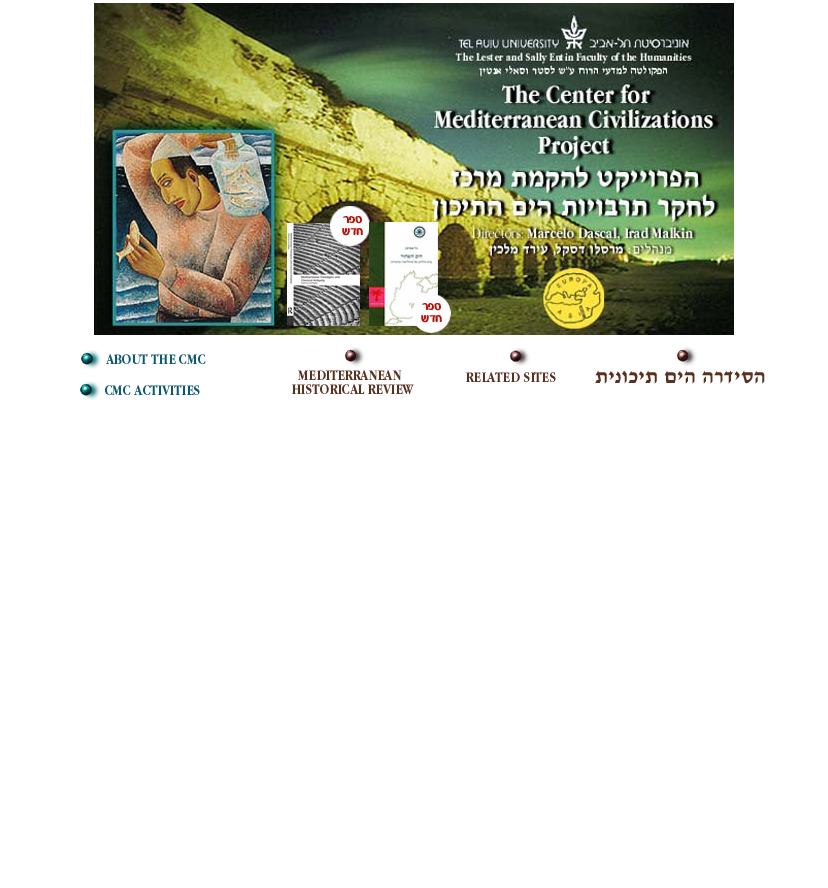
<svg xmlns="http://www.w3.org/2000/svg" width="828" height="888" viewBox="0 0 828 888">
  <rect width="100%" height="100%" fill="rgb(255,255,255)"/>
  <image x="94" y="3" width="640" height="332" href="pic1.png"/>
  <image x="81" y="350" width="125" height="19" href="pic2.png"/>
  <image x="292" y="347" width="122" height="47" href="pic3.png"/>
  <image x="466" y="348" width="90" height="34" href="pic4.png"/>
  <image x="595" y="347" width="170" height="37" href="pic5.png"/>
  <image x="80" y="381" width="120" height="19" href="pic6.png"/>
</svg>
